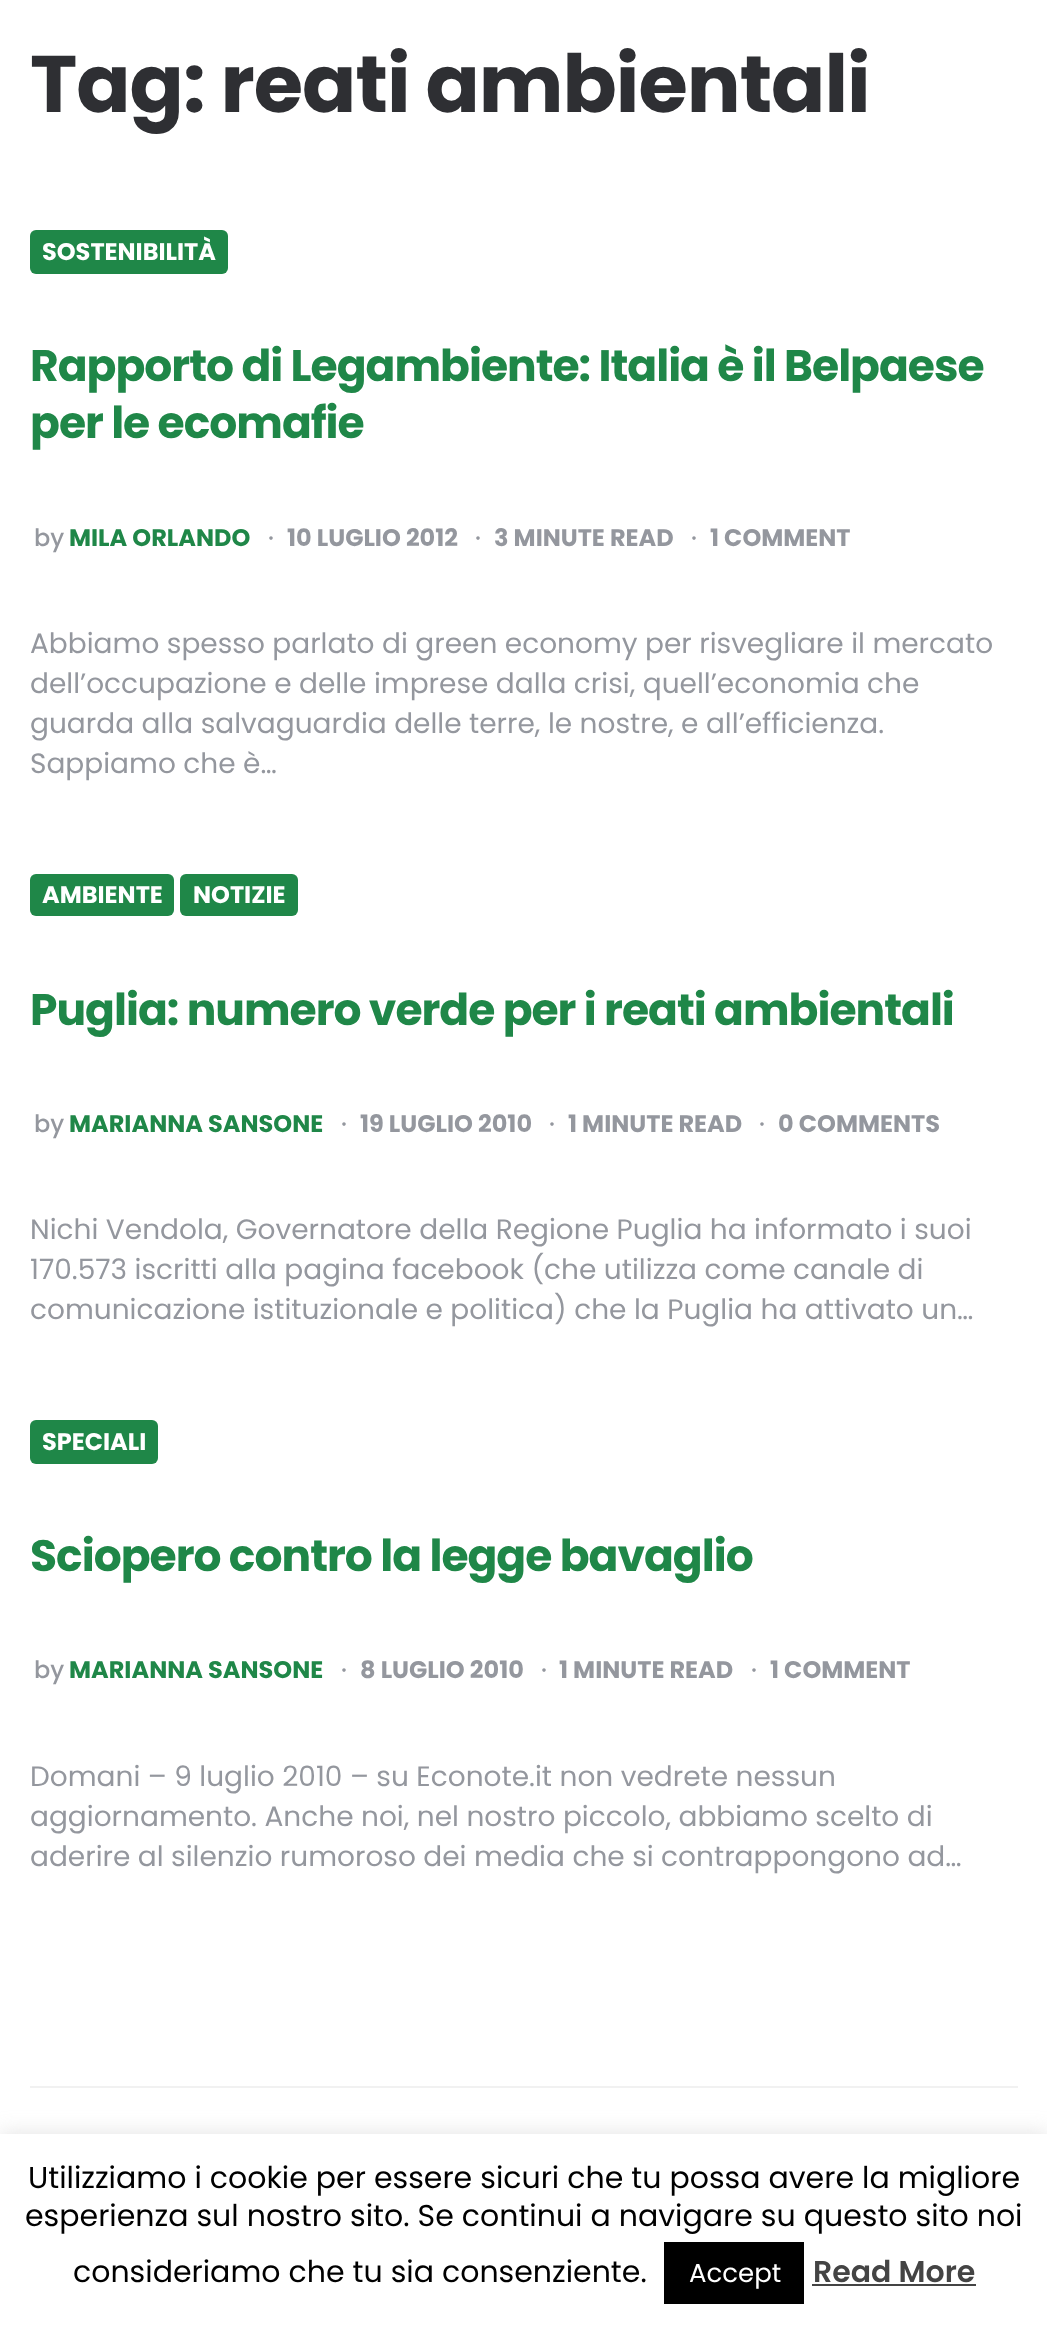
<svg xmlns="http://www.w3.org/2000/svg" width="1047" height="2327" viewBox="0 0 1047 2327">
  <rect width="100%" height="100%" fill="rgb(255,255,255)"/>
  <text x="30" y="112" font-family="Poppins" font-size="80" font-weight="bold" letter-spacing="-1" fill="rgb(46,47,51)">Tag: reati ambientali</text>
  <rect x="30" y="230" width="198" height="44" rx="6" fill="rgb(31,135,72)"/>
  <text x="42" y="260" font-family="Poppins" font-size="24" font-weight="bold" fill="rgb(255,255,255)">SOSTENIBILITÀ</text>
  <g font-family="Poppins" font-size="44" font-weight="bold" letter-spacing="-1" fill="rgb(31,135,72)">
    <text>
      <tspan x="30" y="381">Rapporto di Legambiente: Italia è il Belpaese</tspan>
      <tspan x="30" y="438">per le ecomafie</tspan>
    </text>
  </g>
  <text x="34" y="546" font-family="Poppins" font-size="24" font-weight="500" fill="rgb(148,151,158)">by</text>
  <text x="69" y="546" font-family="Poppins" font-size="24" font-weight="bold" fill="rgb(31,135,72)">MILA ORLANDO</text>
  <text x="268" y="546" font-family="Poppins" font-size="24" font-weight="500" fill="rgb(148,151,158)">·</text>
  <text x="287" y="546" font-family="Poppins" font-size="24" font-weight="bold" fill="rgb(148,151,158)">10 LUGLIO 2012</text>
  <text x="475" y="546" font-family="Poppins" font-size="24" font-weight="500" fill="rgb(148,151,158)">·</text>
  <text x="494" y="546" font-family="Poppins" font-size="24" font-weight="bold" fill="rgb(148,151,158)">3 MINUTE READ</text>
  <text x="691" y="546" font-family="Poppins" font-size="24" font-weight="500" fill="rgb(148,151,158)">·</text>
  <text x="710" y="546" font-family="Poppins" font-size="24" font-weight="bold" fill="rgb(148,151,158)">1 COMMENT</text>
  <g font-family="Poppins" font-size="28" fill="rgb(148,151,158)">
    <text>
      <tspan x="30" y="653">Abbiamo spesso parlato di green economy per risvegliare il mercato</tspan>
      <tspan x="30" y="693">dell’occupazione e delle imprese dalla crisi, quell’economia che</tspan>
      <tspan x="30" y="733">guarda alla salvaguardia delle terre, le nostre, e all’efficienza.</tspan>
      <tspan x="30" y="773">Sappiamo che è…</tspan>
    </text>
  </g>
  <rect x="30" y="874" width="144" height="42" rx="6" fill="rgb(31,135,72)"/>
  <text x="42" y="903" font-family="Poppins" font-size="24" font-weight="bold" fill="rgb(255,255,255)">AMBIENTE</text>
  <rect x="180" y="874" width="118" height="42" rx="6" fill="rgb(31,135,72)"/>
  <text x="193" y="903" font-family="Poppins" font-size="24" font-weight="bold" fill="rgb(255,255,255)">NOTIZIE</text>
  <text x="30" y="1025" font-family="Poppins" font-size="44" font-weight="bold" letter-spacing="-1" fill="rgb(31,135,72)">Puglia: numero verde per i reati ambientali</text>
  <text x="34" y="1132" font-family="Poppins" font-size="24" font-weight="500" fill="rgb(148,151,158)">by</text>
  <text x="69" y="1132" font-family="Poppins" font-size="24" font-weight="bold" fill="rgb(31,135,72)">MARIANNA SANSONE</text>
  <text x="341" y="1132" font-family="Poppins" font-size="24" font-weight="500" fill="rgb(148,151,158)">·</text>
  <text x="360" y="1132" font-family="Poppins" font-size="24" font-weight="bold" fill="rgb(148,151,158)">19 LUGLIO 2010</text>
  <text x="549" y="1132" font-family="Poppins" font-size="24" font-weight="500" fill="rgb(148,151,158)">·</text>
  <text x="568" y="1132" font-family="Poppins" font-size="24" font-weight="bold" fill="rgb(148,151,158)">1 MINUTE READ</text>
  <text x="759" y="1132" font-family="Poppins" font-size="24" font-weight="500" fill="rgb(148,151,158)">·</text>
  <text x="778" y="1132" font-family="Poppins" font-size="24" font-weight="bold" fill="rgb(148,151,158)">0 COMMENTS</text>
  <g font-family="Poppins" font-size="28" fill="rgb(148,151,158)">
    <text>
      <tspan x="30" y="1239">Nichi Vendola, Governatore della Regione Puglia ha informato i suoi</tspan>
      <tspan x="30" y="1279">170.573 iscritti alla pagina facebook (che utilizza come canale di</tspan>
      <tspan x="30" y="1319">comunicazione istituzionale e politica) che la Puglia ha attivato un…</tspan>
    </text>
  </g>
  <rect x="30" y="1420" width="128" height="44" rx="6" fill="rgb(31,135,72)"/>
  <text x="42" y="1450" font-family="Poppins" font-size="24" font-weight="bold" fill="rgb(255,255,255)">SPECIALI</text>
  <text x="30" y="1571" font-family="Poppins" font-size="44" font-weight="bold" letter-spacing="-1" fill="rgb(31,135,72)">Sciopero contro la legge bavaglio</text>
  <text x="34" y="1678" font-family="Poppins" font-size="24" font-weight="500" fill="rgb(148,151,158)">by</text>
  <text x="69" y="1678" font-family="Poppins" font-size="24" font-weight="bold" fill="rgb(31,135,72)">MARIANNA SANSONE</text>
  <text x="341" y="1678" font-family="Poppins" font-size="24" font-weight="500" fill="rgb(148,151,158)">·</text>
  <text x="360" y="1678" font-family="Poppins" font-size="24" font-weight="bold" fill="rgb(148,151,158)">8 LUGLIO 2010</text>
  <text x="541" y="1678" font-family="Poppins" font-size="24" font-weight="500" fill="rgb(148,151,158)">·</text>
  <text x="559" y="1678" font-family="Poppins" font-size="24" font-weight="bold" fill="rgb(148,151,158)">1 MINUTE READ</text>
  <text x="751" y="1678" font-family="Poppins" font-size="24" font-weight="500" fill="rgb(148,151,158)">·</text>
  <text x="770" y="1678" font-family="Poppins" font-size="24" font-weight="bold" fill="rgb(148,151,158)">1 COMMENT</text>
  <g font-family="Poppins" font-size="28" fill="rgb(148,151,158)">
    <text>
      <tspan x="30" y="1786">Domani – 9 luglio 2010 – su Econote.it non vedrete nessun</tspan>
      <tspan x="30" y="1826">aggiornamento. Anche noi, nel nostro piccolo, abbiamo scelto di</tspan>
      <tspan x="30" y="1866">aderire al silenzio rumoroso dei media che si contrappongono ad…</tspan>
    </text>
  </g>
  <rect x="30" y="2086" width="988" height="2" fill="rgb(241,241,241)"/>
  <rect x="0" y="2132" width="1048" height="194" fill="rgba(172,171,171,0.3)" filter="blur(10px)"/>
  <rect x="0" y="2134" width="1047" height="193" fill="rgb(255,255,255)"/>
  <g font-family="Poppins" font-size="30" fill="rgb(0,0,0)">
    <text x="28" y="2188">Utilizziamo i cookie per essere sicuri che tu possa avere la migliore</text>
    <text x="25" y="2226">esperienza sul nostro sito. Se continui a navigare su questo sito noi</text>
    <text x="73" y="2282">consideriamo che tu sia consenziente.</text>
  </g>
  <rect x="664" y="2242" width="140" height="62" fill="rgb(0,0,0)"/>
  <text x="689" y="2282" font-family="Poppins" font-size="26" fill="rgb(255,255,255)">Accept</text>
  <text x="813" y="2282" font-family="Poppins" font-size="30" font-weight="600" fill="rgb(68,68,68)">Read More</text>
  <rect x="812" y="2284" width="164" height="2" fill="rgb(68,68,68)"/>
</svg>
